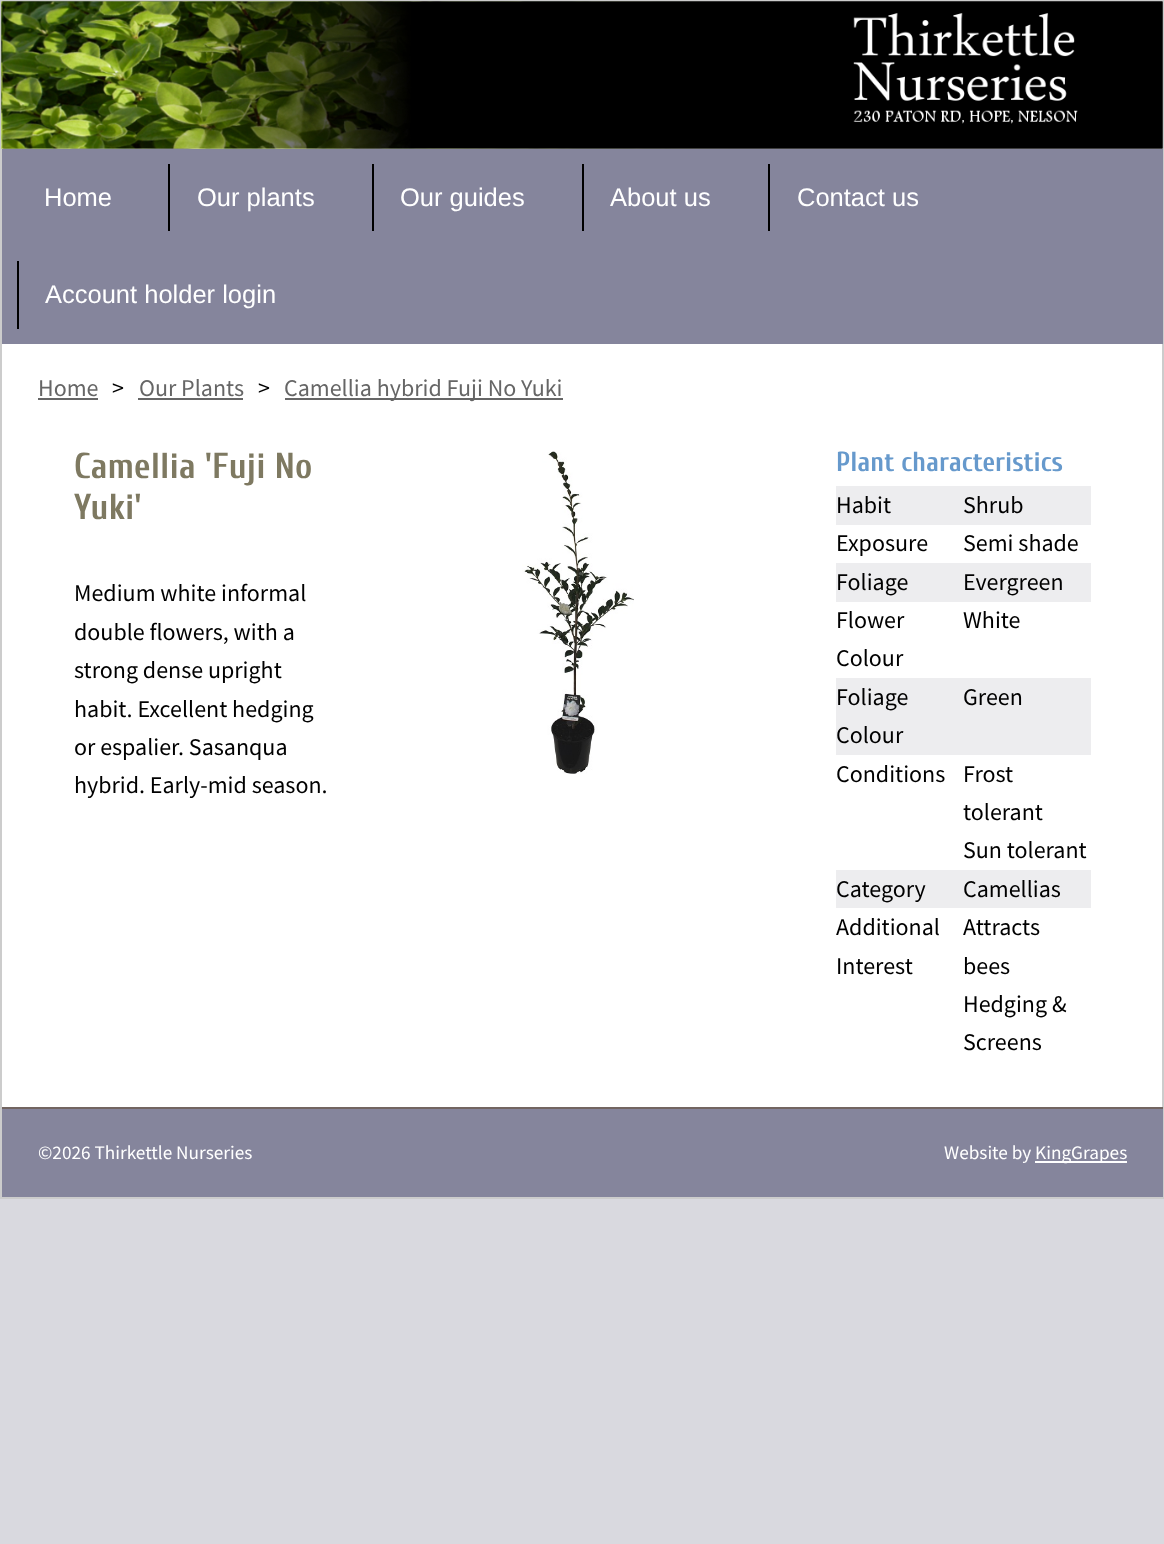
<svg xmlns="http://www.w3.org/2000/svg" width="1164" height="1544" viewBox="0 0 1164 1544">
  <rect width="100%" height="100%" fill="rgb(217,217,223)"/>
  <rect x="2" y="148" width="1160" height="959" fill="rgb(255,255,255)"/>
  <rect x="1" y="1" width="1162" height="1197" fill="none" stroke="rgb(204,204,204)" stroke-width="2"/>
  <image x="1" y="1" width="1162" height="148" href="pic1.png"/>
  <image x="1" y="1" width="1162" height="148" href="pic2.png"/>
  <rect x="2" y="149" width="1161" height="195" fill="rgb(133,133,156)"/>
  <text x="44" y="206" font-family="Liberation Sans" font-size="25.5" fill="rgb(255,255,255)">Home</text>
  <rect x="168" y="164" width="2" height="67" fill="rgb(0,0,0)"/>
  <text x="197" y="206" font-family="Liberation Sans" font-size="25.5" fill="rgb(255,255,255)">Our plants</text>
  <rect x="372" y="164" width="2" height="67" fill="rgb(0,0,0)"/>
  <text x="400" y="206" font-family="Liberation Sans" font-size="25.5" fill="rgb(255,255,255)">Our guides</text>
  <rect x="582" y="164" width="2" height="67" fill="rgb(0,0,0)"/>
  <text x="610" y="206" font-family="Liberation Sans" font-size="25.5" fill="rgb(255,255,255)">About us</text>
  <rect x="768" y="164" width="2" height="67" fill="rgb(0,0,0)"/>
  <text x="797" y="206" font-family="Liberation Sans" font-size="25.5" fill="rgb(255,255,255)">Contact us</text>
  <rect x="17" y="261" width="2" height="68" fill="rgb(0,0,0)"/>
  <text x="45" y="303" font-family="Liberation Sans" font-size="25.5" fill="rgb(255,255,255)">Account holder login</text>
  <text x="38" y="396" font-family="Source Sans Pro" font-size="24" fill="rgb(102,102,102)">Home</text>
  <rect x="38" y="398" width="60" height="2" fill="rgb(102,102,102)"/>
  <text x="112" y="396" font-family="Source Sans Pro" font-size="24" fill="rgb(0,0,0)">&gt;</text>
  <text x="139" y="396" font-family="Source Sans Pro" font-size="24" fill="rgb(102,102,102)">Our Plants</text>
  <rect x="138" y="398" width="105" height="2" fill="rgb(102,102,102)"/>
  <text x="258" y="396" font-family="Source Sans Pro" font-size="24" fill="rgb(0,0,0)">&gt;</text>
  <rect x="285" y="398" width="278" height="2" fill="rgb(102,102,102)"/>
  <text x="284" y="396" font-family="Source Sans Pro" font-size="24" fill="rgb(102,102,102)">Camellia hybrid Fuji No Yuki</text>
  <g font-family="Cuprum" font-size="36" font-weight="bold" fill="rgb(126,121,97)">
    <text>
      <tspan x="74" y="478">Camellia 'Fuji No</tspan>
      <tspan x="74" y="519">Yuki'</tspan>
    </text>
  </g>
  <g font-family="Source Sans Pro" font-size="24" fill="rgb(0,0,0)">
    <text>
      <tspan x="74" y="601">Medium white informal</tspan>
      <tspan x="74" y="640">double flowers, with a</tspan>
      <tspan x="74" y="678">strong dense upright</tspan>
      <tspan x="74" y="717">habit. Excellent hedging</tspan>
      <tspan x="74" y="755">or espalier. Sasanqua</tspan>
      <tspan x="74" y="793">hybrid. Early-mid season.</tspan>
    </text>
  </g>
  <image x="522" y="451" width="112" height="323" href="pic3.png"/>
  <text x="836" y="471" font-family="Cuprum" font-size="27.5" font-weight="bold" fill="rgb(102,153,204)">Plant characteristics</text>
  <rect x="836" y="486" width="255" height="39" fill="rgb(237,237,239)"/>
  <g font-family="Source Sans Pro" font-size="24" fill="rgb(0,0,0)">
    <text x="836" y="513">Habit</text>
    <text x="963" y="513">Shrub</text>
    <text x="836" y="551">Exposure</text>
    <text x="963" y="551">Semi shade</text>
  </g>
  <rect x="836" y="563" width="255" height="39" fill="rgb(237,237,239)"/>
  <g font-family="Source Sans Pro" font-size="24" fill="rgb(0,0,0)">
    <text x="836" y="590">Foliage</text>
    <text x="963" y="590">Evergreen</text>
    <text>
      <tspan x="836" y="628">Flower</tspan>
      <tspan x="836" y="666">Colour</tspan>
    </text>
    <text x="963" y="628">White</text>
  </g>
  <rect x="836" y="678" width="255" height="77" fill="rgb(237,237,239)"/>
  <g font-family="Source Sans Pro" font-size="24" fill="rgb(0,0,0)">
    <text>
      <tspan x="836" y="705">Foliage</tspan>
      <tspan x="836" y="743">Colour</tspan>
    </text>
    <text x="963" y="705">Green</text>
    <text x="836" y="782">Conditions</text>
    <text>
      <tspan x="963" y="782">Frost</tspan>
      <tspan x="963" y="820">tolerant</tspan>
      <tspan x="963" y="858">Sun tolerant</tspan>
    </text>
  </g>
  <rect x="836" y="870" width="255" height="38" fill="rgb(237,237,239)"/>
  <g font-family="Source Sans Pro" font-size="24" fill="rgb(0,0,0)">
    <text x="836" y="897">Category</text>
    <text x="963" y="897">Camellias</text>
    <text>
      <tspan x="836" y="935">Additional</tspan>
      <tspan x="836" y="974">Interest</tspan>
    </text>
    <text>
      <tspan x="963" y="935">Attracts</tspan>
      <tspan x="963" y="974">bees</tspan>
      <tspan x="963" y="1012">Hedging &amp;</tspan>
      <tspan x="963" y="1050">Screens</tspan>
    </text>
  </g>
  <rect x="2" y="1109" width="1161" height="88" fill="rgb(133,133,156)"/>
  <rect x="2" y="1107" width="1161" height="2" fill="rgb(114,101,97)"/>
  <g font-family="Source Sans Pro" font-size="19.25" fill="rgb(255,255,255)">
    <text x="38" y="1159">©2026 Thirkettle Nurseries</text>
    <text x="944" y="1159">Website by</text>
  </g>
  <rect x="1035" y="1161" width="92" height="2" fill="rgb(255,255,255)"/>
  <text x="1035" y="1159" font-family="Source Sans Pro" font-size="19.25" fill="rgb(255,255,255)">KingGrapes</text>
</svg>
